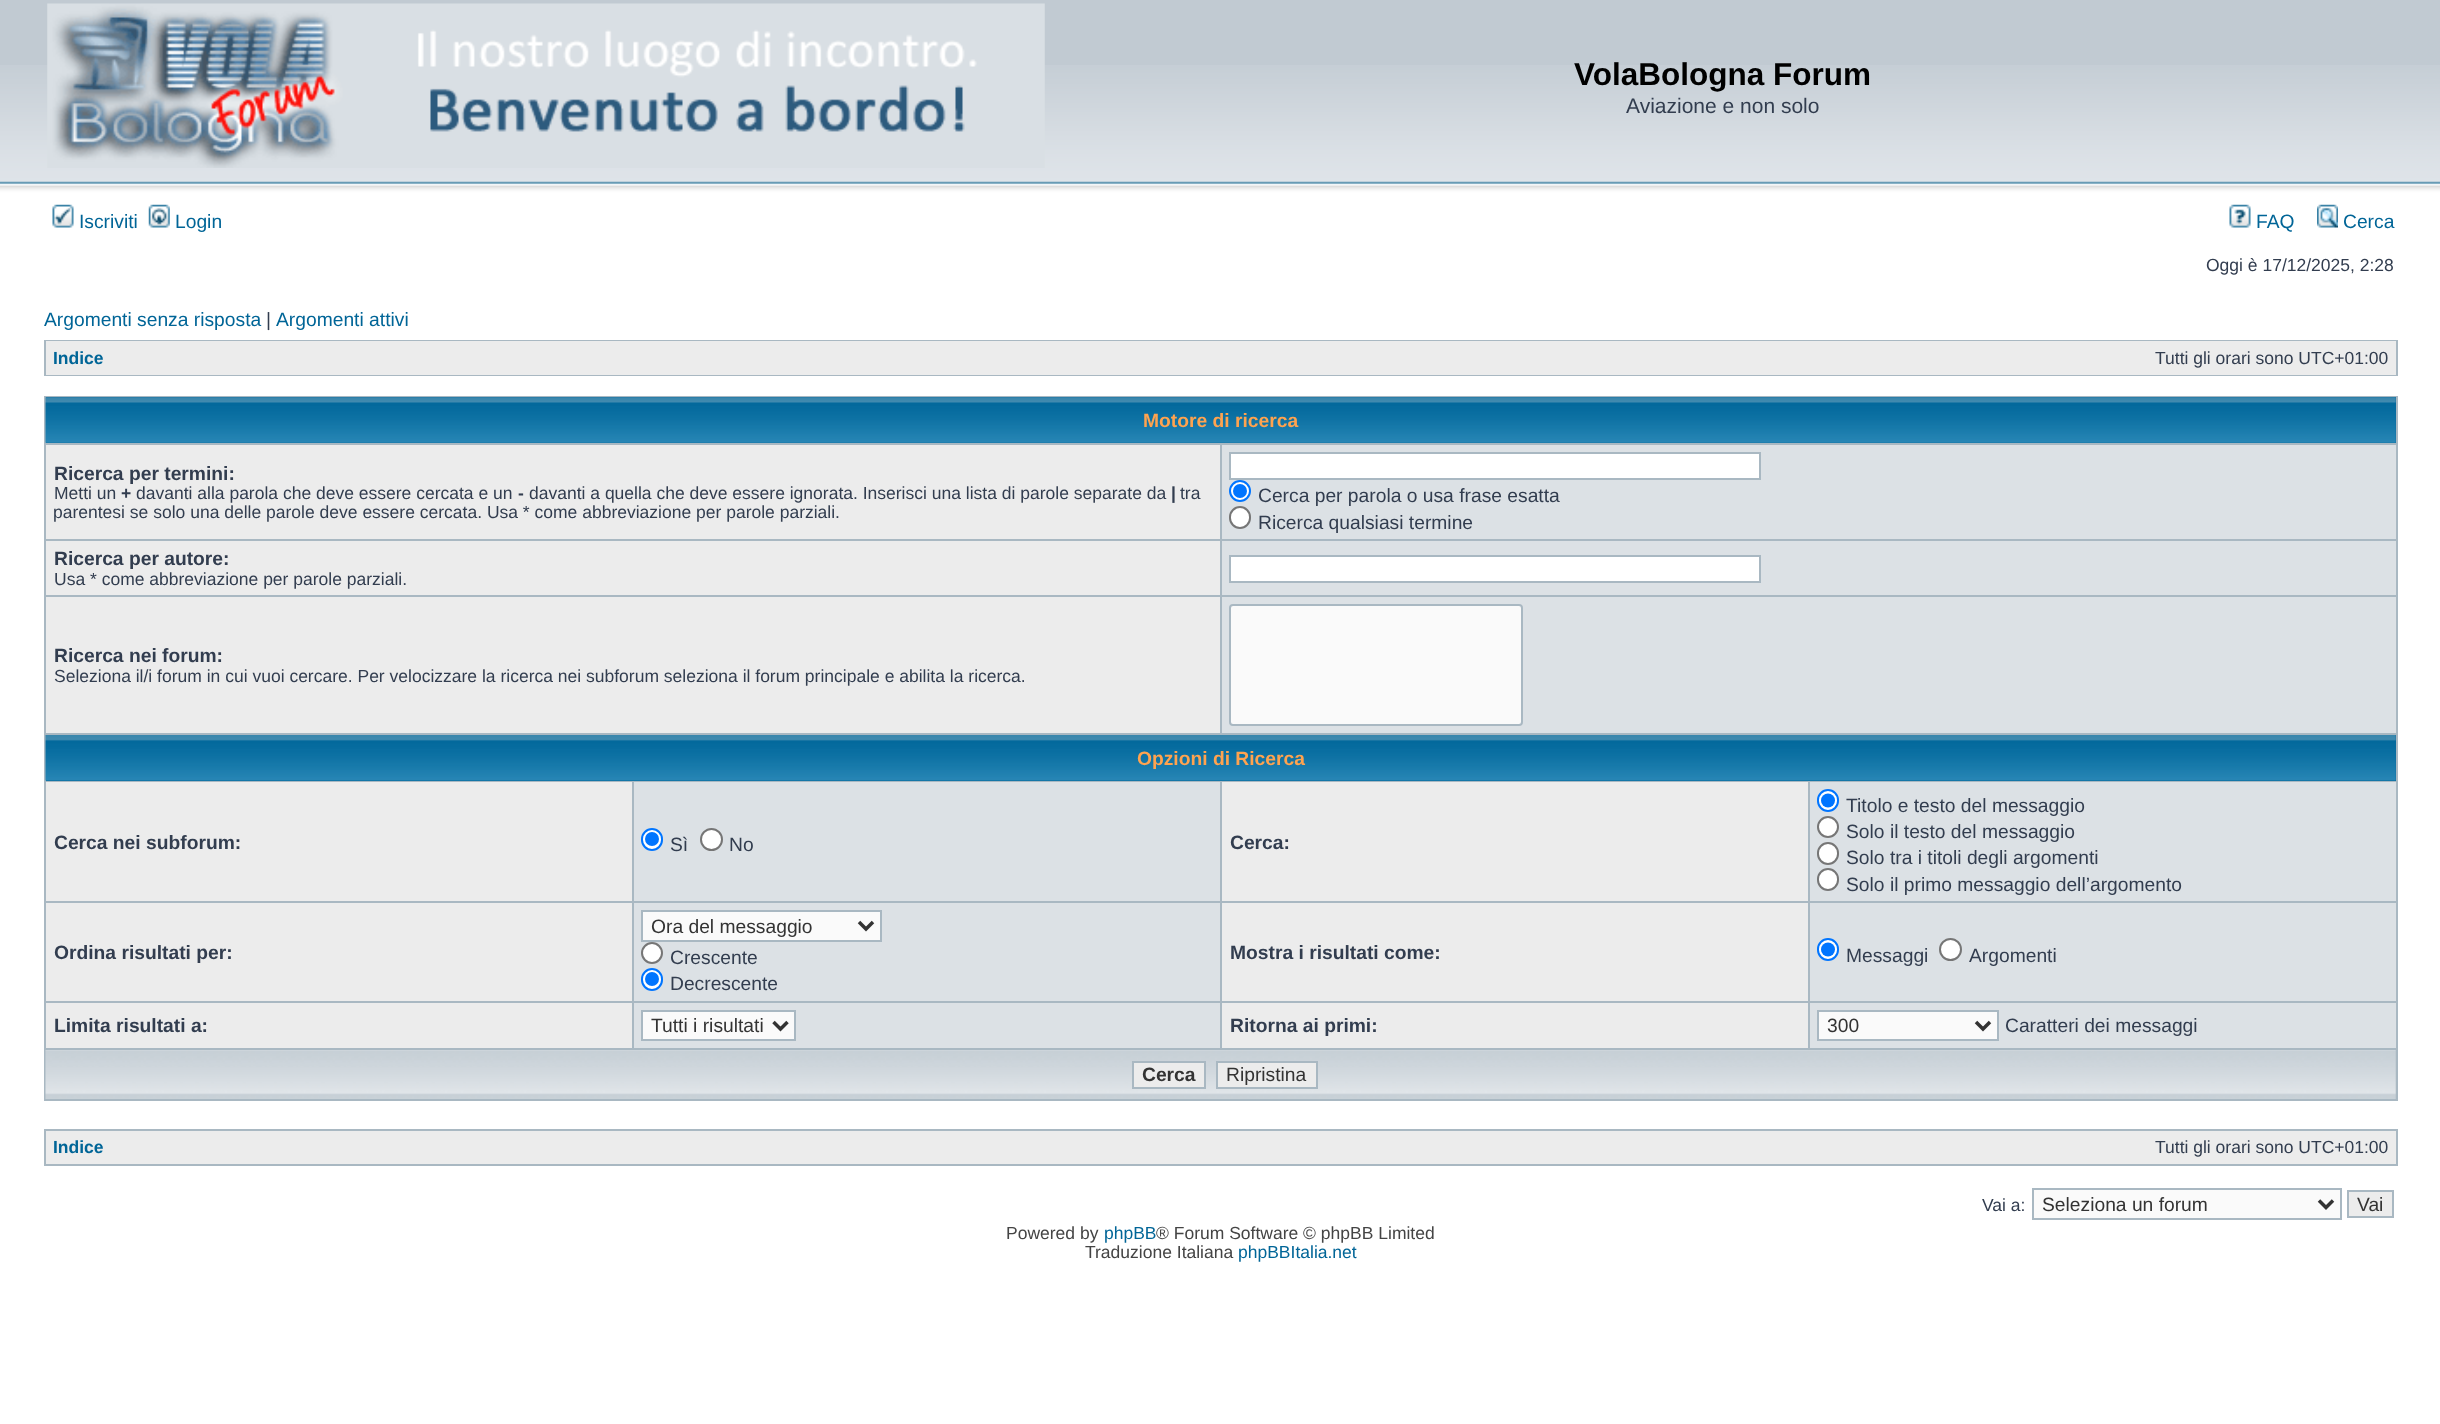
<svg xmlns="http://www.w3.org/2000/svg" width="2440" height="1424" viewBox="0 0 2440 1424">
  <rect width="100%" height="100%" fill="rgb(255,255,255)"/>
  <rect x="0" y="0" width="2440" height="65" fill="rgb(193,202,210)"/>
  <image x="0" y="65" width="2440" height="136" href="pic1.png"/>
  <image x="47" y="3" width="998" height="165" href="pic2.png"/>
  <text x="1574" y="85" font-family="Liberation Sans" font-size="31.5" font-weight="bold" fill="rgb(0,0,0)">VolaBologna Forum</text>
  <text x="1626" y="113" font-family="Liberation Sans" font-size="21" fill="rgb(50,61,79)">Aviazione e non solo</text>
  <image x="52" y="204" width="22" height="24" href="pic3.png"/>
  <text x="79" y="228" font-family="Liberation Sans" font-size="19.25" fill="rgb(0,101,151)">Iscriviti</text>
  <image x="148" y="204" width="22" height="24" href="pic4.png"/>
  <text x="175" y="228" font-family="Liberation Sans" font-size="19.25" fill="rgb(0,101,151)">Login</text>
  <image x="2229" y="204" width="22" height="24" href="pic5.png"/>
  <text x="2256" y="228" font-family="Liberation Sans" font-size="19.25" fill="rgb(0,101,151)">FAQ</text>
  <image x="2317" y="204" width="21" height="24" href="pic6.png"/>
  <text x="2343" y="228" font-family="Liberation Sans" font-size="19.25" fill="rgb(0,101,151)">Cerca</text>
  <text x="2206" y="271" font-family="Liberation Sans" font-size="17.5" fill="rgb(50,61,79)">Oggi è 17/12/2025, 2:28</text>
  <text x="44" y="326" font-family="Liberation Sans" font-size="19.25" fill="rgb(0,101,151)">Argomenti senza risposta</text>
  <text x="266" y="326" font-family="Liberation Sans" font-size="19.25" fill="rgb(50,61,79)">|</text>
  <text x="276" y="326" font-family="Liberation Sans" font-size="19.25" fill="rgb(0,101,151)">Argomenti attivi</text>
  <rect x="44" y="340" width="2354" height="36" fill="rgb(169,184,194)"/>
  <rect x="46" y="341" width="2350" height="34" fill="rgb(236,236,236)"/>
  <text x="53" y="364" font-family="Liberation Sans" font-size="17.5" font-weight="bold" fill="rgb(0,101,151)">Indice</text>
  <text x="2155" y="364" font-family="Liberation Sans" font-size="17.5" fill="rgb(50,61,79)">Tutti gli orari sono UTC+01:00</text>
  <rect x="44" y="396" width="2354" height="705" fill="rgb(169,184,194)"/>
  <rect x="46" y="397" width="2350" height="46" fill="rgb(0,102,153)"/>
  <image x="45" y="397" width="2351" height="46" href="pic7.png"/>
  <text x="1143" y="427" font-family="Liberation Sans" font-size="19.25" font-weight="bold" fill="rgb(255,163,79)">Motore di ricerca</text>
  <rect x="46" y="445" width="1174" height="94" fill="rgb(236,236,236)"/>
  <text x="54" y="480" font-family="Liberation Sans" font-size="19.25" font-weight="bold" fill="rgb(50,61,79)">Ricerca per termini:</text>
  <text x="54" y="499" font-family="Liberation Sans" font-size="17.5" fill="rgb(50,61,79)">Metti un</text>
  <text x="121" y="499" font-family="Liberation Sans" font-size="17.5" font-weight="bold" fill="rgb(50,61,79)">+</text>
  <text x="136" y="499" font-family="Liberation Sans" font-size="17.5" fill="rgb(50,61,79)">davanti alla parola che deve essere cercata e un</text>
  <text x="518" y="499" font-family="Liberation Sans" font-size="17.5" font-weight="bold" fill="rgb(50,61,79)">-</text>
  <text x="529" y="499" font-family="Liberation Sans" font-size="17.5" fill="rgb(50,61,79)">davanti a quella che deve essere ignorata. Inserisci una lista di parole separate da</text>
  <text x="1171" y="499" font-family="Liberation Sans" font-size="17.5" font-weight="bold" fill="rgb(50,61,79)">|</text>
  <g font-family="Liberation Sans" font-size="17.5" fill="rgb(50,61,79)">
    <text x="1180" y="499">tra</text>
    <text x="53" y="518">parentesi se solo una delle parole deve essere cercata. Usa * come abbreviazione per parole parziali.</text>
  </g>
  <rect x="1222" y="445" width="1174" height="94" fill="rgb(220,225,229)"/>
  <rect x="1230" y="453" width="530" height="26" fill="rgb(255,255,255)" stroke="rgb(169,184,194)" stroke-width="2"/>
  <circle cx="1240" cy="491" r="10" fill="rgb(255,255,255)" stroke="rgb(0,117,255)" stroke-width="2"/>
  <circle cx="1240" cy="491" r="7" fill="rgb(0,117,255)"/>
  <text x="1258" y="502" font-family="Liberation Sans" font-size="19.25" fill="rgb(50,61,79)">Cerca per parola o usa frase esatta</text>
  <rect x="1230" y="507" width="20" height="21" rx="10" fill="rgb(255,255,255)" stroke="rgb(118,118,118)" stroke-width="2"/>
  <text x="1258" y="529" font-family="Liberation Sans" font-size="19.25" fill="rgb(50,61,79)">Ricerca qualsiasi termine</text>
  <rect x="46" y="541" width="1174" height="54" fill="rgb(236,236,236)"/>
  <text x="54" y="565" font-family="Liberation Sans" font-size="19.25" font-weight="bold" fill="rgb(50,61,79)">Ricerca per autore:</text>
  <text x="54" y="585" font-family="Liberation Sans" font-size="17.5" fill="rgb(50,61,79)">Usa * come abbreviazione per parole parziali.</text>
  <rect x="1222" y="541" width="1174" height="54" fill="rgb(220,225,229)"/>
  <rect x="1230" y="556" width="530" height="26" fill="rgb(255,255,255)" stroke="rgb(169,184,194)" stroke-width="2"/>
  <rect x="46" y="597" width="1174" height="136" fill="rgb(236,236,236)"/>
  <text x="54" y="662" font-family="Liberation Sans" font-size="19.25" font-weight="bold" fill="rgb(50,61,79)">Ricerca nei forum:</text>
  <text x="54" y="682" font-family="Liberation Sans" font-size="17.5" fill="rgb(50,61,79)">Seleziona il/i forum in cui vuoi cercare. Per velocizzare la ricerca nei subforum seleziona il forum principale e abilita la ricerca.</text>
  <rect x="1222" y="597" width="1174" height="136" fill="rgb(220,225,229)"/>
  <rect x="1230" y="605" width="292" height="120" rx="3" fill="rgb(250,250,250)" stroke="rgb(169,184,194)" stroke-width="2"/>
  <rect x="46" y="735" width="2350" height="46" fill="rgb(0,102,153)"/>
  <image x="45" y="735" width="2351" height="46" href="pic8.png"/>
  <text x="1137" y="765" font-family="Liberation Sans" font-size="19.25" font-weight="bold" fill="rgb(255,163,79)">Opzioni di Ricerca</text>
  <rect x="46" y="782" width="586" height="119" fill="rgb(236,236,236)"/>
  <text x="54" y="849" font-family="Liberation Sans" font-size="19.25" font-weight="bold" fill="rgb(50,61,79)">Cerca nei subforum:</text>
  <rect x="634" y="782" width="586" height="119" fill="rgb(220,225,229)"/>
  <rect x="642" y="829" width="20" height="21" rx="10" fill="rgb(255,255,255)" stroke="rgb(0,117,255)" stroke-width="2"/>
  <circle cx="652" cy="839" r="7" fill="rgb(0,117,255)"/>
  <text x="670" y="851" font-family="Liberation Sans" font-size="19.25" fill="rgb(50,61,79)">Sì</text>
  <circle cx="711.5" cy="839.5" r="10.5" fill="rgb(255,255,255)" stroke="rgb(118,118,118)" stroke-width="2"/>
  <text x="729" y="851" font-family="Liberation Sans" font-size="19.25" fill="rgb(50,61,79)">No</text>
  <rect x="1222" y="782" width="586" height="119" fill="rgb(236,236,236)"/>
  <text x="1230" y="849" font-family="Liberation Sans" font-size="19.25" font-weight="bold" fill="rgb(50,61,79)">Cerca:</text>
  <rect x="1810" y="782" width="586" height="119" fill="rgb(220,225,229)"/>
  <rect x="1818" y="790" width="20" height="21" rx="10" fill="rgb(255,255,255)" stroke="rgb(0,117,255)" stroke-width="2"/>
  <circle cx="1828" cy="800.5" r="7" fill="rgb(0,117,255)"/>
  <text x="1846" y="812" font-family="Liberation Sans" font-size="19.25" fill="rgb(50,61,79)">Titolo e testo del messaggio</text>
  <circle cx="1828" cy="827" r="10" fill="rgb(255,255,255)" stroke="rgb(118,118,118)" stroke-width="2"/>
  <text x="1846" y="838" font-family="Liberation Sans" font-size="19.25" fill="rgb(50,61,79)">Solo il testo del messaggio</text>
  <rect x="1818" y="843" width="20" height="21" rx="10" fill="rgb(255,255,255)" stroke="rgb(118,118,118)" stroke-width="2"/>
  <text x="1846" y="864" font-family="Liberation Sans" font-size="19.25" fill="rgb(50,61,79)">Solo tra i titoli degli argomenti</text>
  <rect x="1818" y="869" width="20" height="21" rx="10" fill="rgb(255,255,255)" stroke="rgb(118,118,118)" stroke-width="2"/>
  <text x="1846" y="891" font-family="Liberation Sans" font-size="19.25" fill="rgb(50,61,79)">Solo il primo messaggio dell’argomento</text>
  <rect x="46" y="903" width="586" height="98" fill="rgb(236,236,236)"/>
  <text x="54" y="959" font-family="Liberation Sans" font-size="19.25" font-weight="bold" fill="rgb(50,61,79)">Ordina risultati per:</text>
  <rect x="634" y="903" width="586" height="98" fill="rgb(220,225,229)"/>
  <rect x="642" y="911" width="239" height="30" fill="rgb(250,250,250)" stroke="rgb(169,184,194)" stroke-width="2"/>
  <path d="M859 922L866 929L873 922" fill="none" stroke="rgb(51,51,51)" stroke-width="3.5"/>
  <text x="651" y="933" font-family="Liberation Sans" font-size="19.25" fill="rgb(51,51,51)">Ora del messaggio</text>
  <circle cx="652" cy="953" r="10" fill="rgb(255,255,255)" stroke="rgb(118,118,118)" stroke-width="2"/>
  <text x="670" y="964" font-family="Liberation Sans" font-size="19.25" fill="rgb(50,61,79)">Crescente</text>
  <rect x="642" y="969" width="20" height="21" rx="10" fill="rgb(255,255,255)" stroke="rgb(0,117,255)" stroke-width="2"/>
  <circle cx="652" cy="979" r="7" fill="rgb(0,117,255)"/>
  <text x="670" y="990" font-family="Liberation Sans" font-size="19.25" fill="rgb(50,61,79)">Decrescente</text>
  <rect x="1222" y="903" width="586" height="98" fill="rgb(236,236,236)"/>
  <text x="1230" y="959" font-family="Liberation Sans" font-size="19.25" font-weight="bold" fill="rgb(50,61,79)">Mostra i risultati come:</text>
  <rect x="1810" y="903" width="586" height="98" fill="rgb(220,225,229)"/>
  <rect x="1818" y="939" width="20" height="21" rx="10" fill="rgb(255,255,255)" stroke="rgb(0,117,255)" stroke-width="2"/>
  <circle cx="1828" cy="949.5" r="7" fill="rgb(0,117,255)"/>
  <text x="1846" y="962" font-family="Liberation Sans" font-size="19.25" fill="rgb(50,61,79)">Messaggi</text>
  <circle cx="1950.5" cy="949.5" r="10.5" fill="rgb(255,255,255)" stroke="rgb(118,118,118)" stroke-width="2"/>
  <text x="1969" y="962" font-family="Liberation Sans" font-size="19.25" fill="rgb(50,61,79)">Argomenti</text>
  <rect x="46" y="1003" width="586" height="45" fill="rgb(236,236,236)"/>
  <text x="54" y="1032" font-family="Liberation Sans" font-size="19.25" font-weight="bold" fill="rgb(50,61,79)">Limita risultati a:</text>
  <rect x="634" y="1003" width="586" height="45" fill="rgb(220,225,229)"/>
  <rect x="642" y="1011" width="153" height="29" fill="rgb(250,250,250)" stroke="rgb(169,184,194)" stroke-width="2"/>
  <path d="M773.5 1022L780.5 1029L787.5 1022" fill="none" stroke="rgb(51,51,51)" stroke-width="3.5"/>
  <text x="651" y="1032" font-family="Liberation Sans" font-size="19.25" fill="rgb(51,51,51)">Tutti i risultati</text>
  <rect x="1222" y="1003" width="586" height="45" fill="rgb(236,236,236)"/>
  <text x="1230" y="1032" font-family="Liberation Sans" font-size="19.25" font-weight="bold" fill="rgb(50,61,79)">Ritorna ai primi:</text>
  <rect x="1810" y="1003" width="586" height="45" fill="rgb(220,225,229)"/>
  <rect x="1818" y="1011" width="180" height="29" fill="rgb(250,250,250)" stroke="rgb(169,184,194)" stroke-width="2"/>
  <path d="M1976 1022L1983 1029L1990 1022" fill="none" stroke="rgb(51,51,51)" stroke-width="3.5"/>
  <text x="1827" y="1032" font-family="Liberation Sans" font-size="19.25" fill="rgb(51,51,51)">300</text>
  <text x="2005" y="1032" font-family="Liberation Sans" font-size="19.25" fill="rgb(50,61,79)">Caratteri dei messaggi</text>
  <image x="45" y="1050" width="2351" height="49" href="pic9.png"/>
  <rect x="1133" y="1062" width="72" height="26" fill="rgb(236,236,236)" stroke="rgb(169,184,194)" stroke-width="2"/>
  <text x="1142" y="1081" font-family="Liberation Sans" font-size="19.25" font-weight="bold" fill="rgb(51,51,51)">Cerca</text>
  <rect x="1217" y="1062" width="100" height="26" fill="rgb(236,236,236)" stroke="rgb(169,184,194)" stroke-width="2"/>
  <text x="1226" y="1081" font-family="Liberation Sans" font-size="19.25" fill="rgb(51,51,51)">Ripristina</text>
  <rect x="44" y="1129" width="2354" height="37" fill="rgb(169,184,194)"/>
  <rect x="46" y="1131" width="2350" height="33" fill="rgb(236,236,236)"/>
  <text x="53" y="1153" font-family="Liberation Sans" font-size="17.5" font-weight="bold" fill="rgb(0,101,151)">Indice</text>
  <g font-family="Liberation Sans" font-size="17.5" fill="rgb(50,61,79)">
    <text x="2155" y="1153">Tutti gli orari sono UTC+01:00</text>
    <text x="1982" y="1211">Vai a:</text>
  </g>
  <rect x="2033" y="1189" width="308" height="30" fill="rgb(250,250,250)" stroke="rgb(169,184,194)" stroke-width="2"/>
  <path d="M2319 1200.5L2326 1207.5L2333 1200.5" fill="none" stroke="rgb(51,51,51)" stroke-width="3.5"/>
  <text x="2042" y="1211" font-family="Liberation Sans" font-size="19.25" fill="rgb(51,51,51)">Seleziona un forum</text>
  <rect x="2348" y="1191" width="45" height="26" fill="rgb(236,236,236)" stroke="rgb(169,184,194)" stroke-width="2"/>
  <text x="2357" y="1211" font-family="Liberation Sans" font-size="19.25" fill="rgb(51,51,51)">Vai</text>
  <text x="1006" y="1239" font-family="Liberation Sans" font-size="17.5" fill="rgb(68,68,68)">Powered by</text>
  <text x="1104" y="1239" font-family="Liberation Sans" font-size="17.5" fill="rgb(0,101,151)">phpBB</text>
  <g font-family="Liberation Sans" font-size="17.5" fill="rgb(68,68,68)">
    <text x="1156" y="1239">® Forum Software © phpBB Limited</text>
    <text x="1085" y="1258">Traduzione Italiana</text>
  </g>
  <text x="1238" y="1258" font-family="Liberation Sans" font-size="17.5" fill="rgb(0,101,151)">phpBBItalia.net</text>
</svg>
